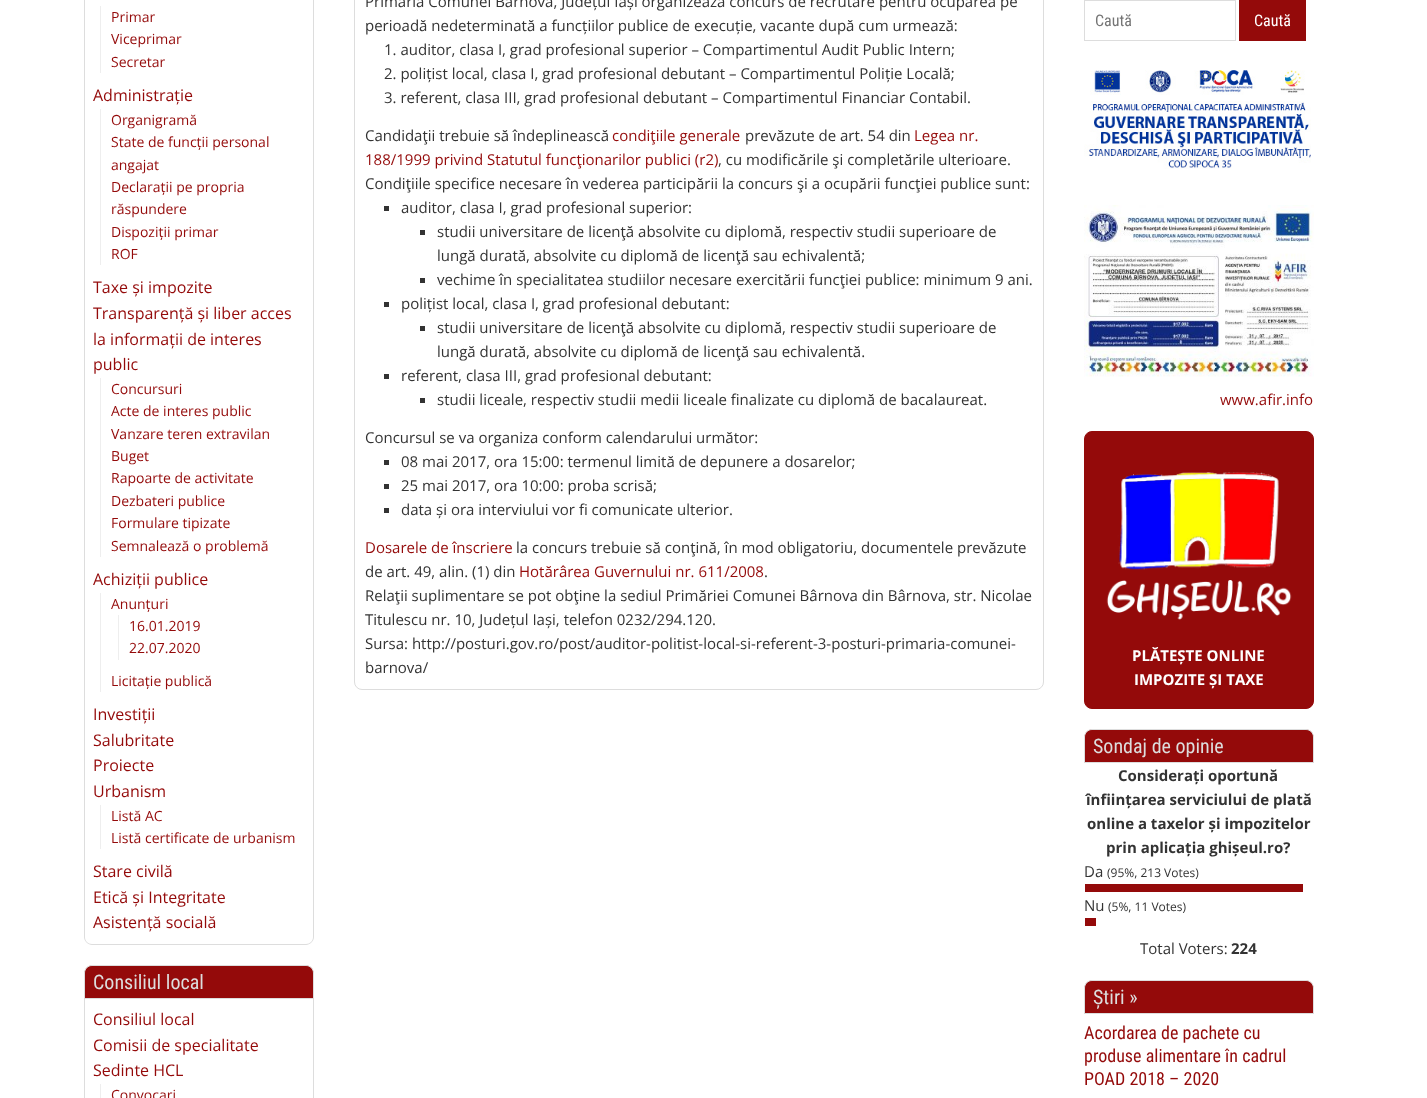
<svg xmlns="http://www.w3.org/2000/svg" width="1427" height="1098" viewBox="0 0 1427 1098">
  <rect width="100%" height="100%" fill="rgb(255,255,255)"/>
  <path d="M84-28H314V937C314 941 310 945 306 945H92C88 945 84 941 84 937ZM85-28H313V937C313 941 310 944 306 944H92C88 944 85 941 85 937Z" fill="rgb(221,221,221)" fill-rule="evenodd"/>
  <rect x="100" y="6" width="1" height="67" fill="rgb(238,238,238)"/>
  <g font-family="Open Sans" font-size="14" fill="rgb(148,10,10)">
    <text>
      <tspan x="111" y="22">Primar</tspan>
      <tspan x="111" y="44">Viceprimar</tspan>
      <tspan x="111" y="67">Secretar</tspan>
    </text>
  </g>
  <text x="93" y="101" font-family="Open Sans" font-size="16" fill="rgb(148,10,10)">Administrație</text>
  <rect x="100" y="109" width="1" height="156" fill="rgb(238,238,238)"/>
  <g font-family="Open Sans" font-size="14" fill="rgb(148,10,10)">
    <text>
      <tspan x="111" y="125">Organigramă</tspan>
      <tspan x="111" y="147">State de funcții personal</tspan>
      <tspan x="111" y="170">angajat</tspan>
      <tspan x="111" y="192">Declarații pe propria</tspan>
      <tspan x="111" y="214">răspundere</tspan>
      <tspan x="111" y="237">Dispoziții primar</tspan>
      <tspan x="111" y="259">ROF</tspan>
    </text>
  </g>
  <g font-family="Open Sans" font-size="16" fill="rgb(148,10,10)">
    <text>
      <tspan x="93" y="293">Taxe și impozite</tspan>
      <tspan x="93" y="319">Transparență și liber acces</tspan>
      <tspan x="93" y="345">la informații de interes</tspan>
      <tspan x="93" y="370">public</tspan>
    </text>
  </g>
  <rect x="100" y="378" width="1" height="179" fill="rgb(238,238,238)"/>
  <g font-family="Open Sans" font-size="14" fill="rgb(148,10,10)">
    <text>
      <tspan x="111" y="394">Concursuri</tspan>
      <tspan x="111" y="416">Acte de interes public</tspan>
      <tspan x="111" y="439">Vanzare teren extravilan</tspan>
      <tspan x="111" y="461">Buget</tspan>
      <tspan x="111" y="483">Rapoarte de activitate</tspan>
      <tspan x="111" y="506">Dezbateri publice</tspan>
      <tspan x="111" y="528">Formulare tipizate</tspan>
      <tspan x="111" y="551">Semnalează o problemă</tspan>
    </text>
  </g>
  <text x="93" y="585" font-family="Open Sans" font-size="16" fill="rgb(148,10,10)">Achiziții publice</text>
  <rect x="100" y="593" width="1" height="99" fill="rgb(238,238,238)"/>
  <text x="111" y="609" font-family="Open Sans" font-size="14" fill="rgb(148,10,10)">Anunțuri</text>
  <rect x="118" y="615" width="1" height="45" fill="rgb(238,238,238)"/>
  <g font-family="Open Sans" font-size="14" fill="rgb(148,10,10)">
    <text>
      <tspan x="129" y="631">16.01.2019</tspan>
      <tspan x="129" y="653">22.07.2020</tspan>
    </text>
    <text x="111" y="686">Licitație publică</text>
  </g>
  <g font-family="Open Sans" font-size="16" fill="rgb(148,10,10)">
    <text>
      <tspan x="93" y="720">Investiții</tspan>
      <tspan x="93" y="746">Salubritate</tspan>
      <tspan x="93" y="771">Proiecte</tspan>
      <tspan x="93" y="797">Urbanism</tspan>
    </text>
  </g>
  <rect x="100" y="805" width="1" height="44" fill="rgb(238,238,238)"/>
  <g font-family="Open Sans" font-size="14" fill="rgb(148,10,10)">
    <text>
      <tspan x="111" y="821">Listă AC</tspan>
      <tspan x="111" y="843">Listă certificate de urbanism</tspan>
    </text>
  </g>
  <g font-family="Open Sans" font-size="16" fill="rgb(148,10,10)">
    <text>
      <tspan x="93" y="877">Stare civilă</tspan>
      <tspan x="93" y="903">Etică și Integritate</tspan>
      <tspan x="93" y="928">Asistență socială</tspan>
    </text>
  </g>
  <path d="M92 965.5H306C310 965.5 313.5 969 313.5 973V998.5H84.5V973C84.5 969 88 965.5 92 965.5Z" fill="rgb(148,10,10)" stroke="rgb(221,221,221)"/>
  <text x="93" y="989" font-family="Roboto Condensed" font-size="20" fill="rgb(221,221,221)">Consiliul local</text>
  <path d="M84 999H314V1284C314 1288 310 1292 306 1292H92C88 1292 84 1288 84 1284ZM85 999H313V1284C313 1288 310 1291 306 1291H92C88 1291 85 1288 85 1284Z" fill="rgb(221,221,221)" fill-rule="evenodd"/>
  <g font-family="Open Sans" font-size="16" fill="rgb(148,10,10)">
    <text>
      <tspan x="93" y="1025">Consiliul local</tspan>
      <tspan x="93" y="1051">Comisii de specialitate</tspan>
      <tspan x="93" y="1076">Sedinte HCL</tspan>
    </text>
  </g>
  <rect x="100" y="1084" width="1" height="14" fill="rgb(238,238,238)"/>
  <text x="111" y="1100" font-family="Open Sans" font-size="14" fill="rgb(148,10,10)">Convocari</text>
  <rect x="354.5" y="-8.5" width="689" height="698" rx="7.5" fill="none" stroke="rgb(221,221,221)"/>
  <g font-family="Open Sans" font-size="15" fill="rgb(51,51,51)">
    <text>
      <tspan x="365" y="7">Primăria Comunei Bârnova, Județul Iași organizează concurs de recrutare pentru ocuparea pe</tspan>
      <tspan x="365" y="31">perioadă nedeterminată a funcțiilor publice de execuție, vacante după cum urmează:</tspan>
    </text>
    <text>
      <tspan x="384" y="55">1. auditor, clasa I, grad profesional superior – Compartimentul Audit Public Intern;</tspan>
      <tspan x="384" y="79">2. polițist local, clasa I, grad profesional debutant – Compartimentul Poliție Locală;</tspan>
      <tspan x="384" y="103">3. referent, clasa III, grad profesional debutant – Compartimentul Financiar Contabil.</tspan>
    </text>
    <text x="365" y="141">Candidaţii trebuie să îndeplinească</text>
  </g>
  <text x="612" y="141" font-family="Open Sans" font-size="15" fill="rgb(148,10,10)">condiţiile generale</text>
  <text x="745" y="141" font-family="Open Sans" font-size="15" fill="rgb(51,51,51)">prevăzute de art. 54 din</text>
  <g font-family="Open Sans" font-size="15" fill="rgb(148,10,10)">
    <text x="914" y="141">Legea nr.</text>
    <text x="365" y="165">188/1999 privind Statutul funcţionarilor publici (r2)</text>
  </g>
  <g font-family="Open Sans" font-size="15" fill="rgb(51,51,51)">
    <text x="718" y="165">, cu modificările şi completările ulterioare.</text>
    <text x="365" y="189">Condiţiile specifice necesare în vederea participării la concurs şi a ocupării funcţiei publice sunt:</text>
  </g>
  <rect x="384" y="206" width="5" height="5" fill="rgb(51,51,51)"/>
  <text x="401" y="213" font-family="Open Sans" font-size="15" fill="rgb(51,51,51)">auditor, clasa I, grad profesional superior:</text>
  <rect x="420" y="230" width="5" height="5" fill="rgb(51,51,51)"/>
  <g font-family="Open Sans" font-size="15" fill="rgb(51,51,51)">
    <text>
      <tspan x="437" y="237">studii universitare de licenţă absolvite cu diplomă, respectiv studii superioare de</tspan>
      <tspan x="437" y="261">lungă durată, absolvite cu diplomă de licenţă sau echivalentă;</tspan>
    </text>
  </g>
  <rect x="420" y="278" width="5" height="5" fill="rgb(51,51,51)"/>
  <text x="437" y="285" font-family="Open Sans" font-size="15" fill="rgb(51,51,51)">vechime în specialitatea studiilor necesare exercitării funcţiei publice: minimum 9 ani.</text>
  <rect x="384" y="302" width="5" height="5" fill="rgb(51,51,51)"/>
  <text x="401" y="309" font-family="Open Sans" font-size="15" fill="rgb(51,51,51)">polițist local, clasa I, grad profesional debutant:</text>
  <rect x="420" y="326" width="5" height="5" fill="rgb(51,51,51)"/>
  <g font-family="Open Sans" font-size="15" fill="rgb(51,51,51)">
    <text>
      <tspan x="437" y="333">studii universitare de licenţă absolvite cu diplomă, respectiv studii superioare de</tspan>
      <tspan x="437" y="357">lungă durată, absolvite cu diplomă de licenţă sau echivalentă.</tspan>
    </text>
  </g>
  <rect x="384" y="374" width="5" height="5" fill="rgb(51,51,51)"/>
  <text x="401" y="381" font-family="Open Sans" font-size="15" fill="rgb(51,51,51)">referent, clasa III, grad profesional debutant:</text>
  <rect x="420" y="398" width="5" height="5" fill="rgb(51,51,51)"/>
  <g font-family="Open Sans" font-size="15" fill="rgb(51,51,51)">
    <text x="437" y="405">studii liceale, respectiv studii medii liceale finalizate cu diplomă de bacalaureat.</text>
    <text x="365" y="443">Concursul se va organiza conform calendarului următor:</text>
  </g>
  <rect x="384" y="460" width="5" height="5" fill="rgb(51,51,51)"/>
  <text x="401" y="467" font-family="Open Sans" font-size="15" fill="rgb(51,51,51)">08 mai 2017, ora 15:00: termenul limită de depunere a dosarelor;</text>
  <rect x="384" y="484" width="5" height="5" fill="rgb(51,51,51)"/>
  <text x="401" y="491" font-family="Open Sans" font-size="15" fill="rgb(51,51,51)">25 mai 2017, ora 10:00: proba scrisă;</text>
  <rect x="384" y="508" width="5" height="5" fill="rgb(51,51,51)"/>
  <text x="401" y="515" font-family="Open Sans" font-size="15" fill="rgb(51,51,51)">data și ora interviului vor fi comunicate ulterior.</text>
  <text x="365" y="553" font-family="Open Sans" font-size="15" fill="rgb(148,10,10)">Dosarele de înscriere</text>
  <g font-family="Open Sans" font-size="15" fill="rgb(51,51,51)">
    <text x="516" y="553">la concurs trebuie să conţină, în mod obligatoriu, documentele prevăzute</text>
    <text x="365" y="577">de art. 49, alin. (1) din</text>
  </g>
  <text x="519" y="577" font-family="Open Sans" font-size="15" fill="rgb(148,10,10)">Hotărârea Guvernului nr. 611/2008</text>
  <g font-family="Open Sans" font-size="15" fill="rgb(51,51,51)">
    <text x="764" y="577">.</text>
    <text>
      <tspan x="365" y="601">Relaţii suplimentare se pot obţine la sediul Primăriei Comunei Bârnova din Bârnova, str. Nicolae</tspan>
      <tspan x="365" y="625">Titulescu nr. 10, Județul Iași, telefon 0232/294.120.</tspan>
      <tspan x="365" y="649">Sursa: http://posturi.gov.ro/post/auditor-politist-local-si-referent-3-posturi-primaria-comunei-</tspan>
      <tspan x="365" y="673">barnova/</tspan>
    </text>
  </g>
  <rect x="1084.5" y="0.5" width="151" height="40" fill="none" stroke="rgb(221,221,221)"/>
  <text x="1095" y="26" font-family="Roboto Condensed" font-size="16" fill="rgb(117,117,117)">Caută</text>
  <rect x="1239" y="0" width="67" height="41" fill="rgb(148,10,10)"/>
  <text x="1254" y="26" font-family="Roboto Condensed" font-size="16" fill="rgb(255,255,255)">Caută</text>
  <image x="1084" y="70" width="227" height="99" href="pic1.png"/>
  <image x="1084" y="205" width="230" height="172" href="pic2.png"/>
  <text x="1220" y="405" font-family="Open Sans" font-size="15" fill="rgb(148,10,10)">www.afir.info</text>
  <rect x="1084.5" y="431.5" width="229" height="277" rx="7.5" fill="rgb(148,10,10)" stroke="rgb(148,10,10)"/>
  <image x="1106" y="472" width="186" height="148" href="pic3.png"/>
  <g font-family="Open Sans" font-size="15" font-weight="bold" fill="rgb(255,255,255)">
    <text x="1132" y="661">PLĂTEȘTE ONLINE</text>
    <text x="1134" y="685">IMPOZITE ȘI TAXE</text>
  </g>
  <path d="M1092 729.5H1306C1310 729.5 1313.5 733 1313.5 737V762.5H1084.5V737C1084.5 733 1088 729.5 1092 729.5Z" fill="rgb(148,10,10)" stroke="rgb(221,221,221)"/>
  <text x="1093" y="753" font-family="Roboto Condensed" font-size="20" fill="rgb(221,221,221)">Sondaj de opinie</text>
  <g font-family="Open Sans" font-size="15" font-weight="bold" fill="rgb(51,51,51)">
    <text x="1118" y="781">Considerați oportună</text>
    <text x="1086" y="805">înființarea serviciului de plată</text>
    <text x="1087" y="829">online a taxelor și impozitelor</text>
    <text x="1106" y="853">prin aplicația ghișeul.ro?</text>
  </g>
  <text x="1084" y="877" font-family="Open Sans" font-size="15" fill="rgb(51,51,51)">Da</text>
  <text x="1107" y="877" font-family="Open Sans" font-size="12" fill="rgb(51,51,51)">(95%, 213 Votes)</text>
  <rect x="1085" y="884" width="218" height="8" fill="rgb(148,10,10)"/>
  <text x="1084" y="911" font-family="Open Sans" font-size="15" fill="rgb(51,51,51)">Nu</text>
  <text x="1108" y="911" font-family="Open Sans" font-size="12" fill="rgb(51,51,51)">(5%, 11 Votes)</text>
  <rect x="1085" y="918" width="11" height="8" fill="rgb(148,10,10)"/>
  <text x="1140" y="954" font-family="Open Sans" font-size="15" fill="rgb(51,51,51)">Total Voters:</text>
  <text x="1231" y="954" font-family="Open Sans" font-size="15" font-weight="bold" fill="rgb(51,51,51)">224</text>
  <path d="M1092 980.5H1306C1310 980.5 1313.5 984 1313.5 988V1013.5H1084.5V988C1084.5 984 1088 980.5 1092 980.5Z" fill="rgb(148,10,10)" stroke="rgb(221,221,221)"/>
  <text x="1093" y="1004" font-family="Roboto Condensed" font-size="20" fill="rgb(221,221,221)">Știri »</text>
  <g font-family="Roboto Condensed" font-size="18" fill="rgb(148,10,10)">
    <text>
      <tspan x="1084" y="1039">Acordarea de pachete cu</tspan>
      <tspan x="1084" y="1062">produse alimentare în cadrul</tspan>
      <tspan x="1084" y="1085">POAD 2018 – 2020</tspan>
    </text>
  </g>
</svg>
